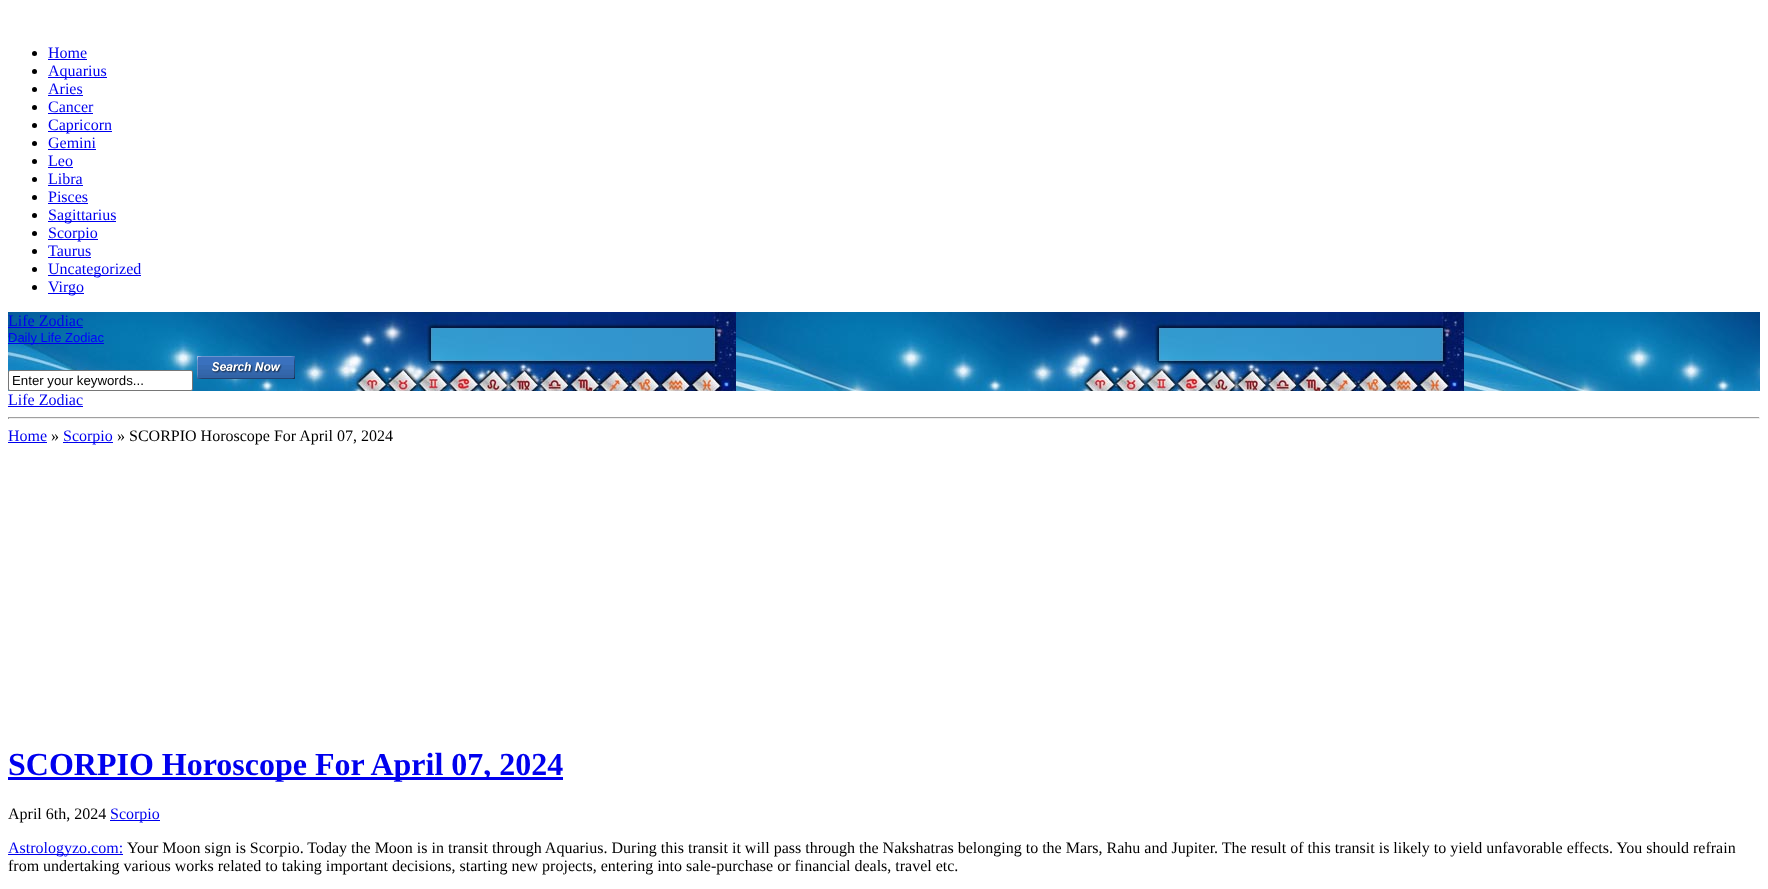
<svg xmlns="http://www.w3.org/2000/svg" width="1768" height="889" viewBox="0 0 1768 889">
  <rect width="100%" height="100%" fill="rgb(255,255,255)"/>
  <circle cx="34.5" cy="53.5" r="2.5" fill="rgb(0,0,0)"/>
  <text x="48" y="58" font-family="Liberation Serif" font-size="16" fill="rgb(0,0,238)">Home</text>
  <rect x="48" y="59" width="39" height="1" fill="rgb(0,0,238)"/>
  <circle cx="34.5" cy="71.5" r="2.5" fill="rgb(0,0,0)"/>
  <rect x="48" y="77" width="59" height="1" fill="rgb(0,0,238)"/>
  <text x="48" y="76" font-family="Liberation Serif" font-size="16" fill="rgb(0,0,238)">Aquarius</text>
  <circle cx="34.5" cy="89.5" r="2.5" fill="rgb(0,0,0)"/>
  <text x="48" y="94" font-family="Liberation Serif" font-size="16" fill="rgb(0,0,238)">Aries</text>
  <rect x="48" y="95" width="35" height="1" fill="rgb(0,0,238)"/>
  <circle cx="34.5" cy="107.5" r="2.5" fill="rgb(0,0,0)"/>
  <text x="48" y="112" font-family="Liberation Serif" font-size="16" fill="rgb(0,0,238)">Cancer</text>
  <rect x="48" y="113" width="45" height="1" fill="rgb(0,0,238)"/>
  <circle cx="34.5" cy="125.5" r="2.5" fill="rgb(0,0,0)"/>
  <rect x="48" y="131" width="64" height="1" fill="rgb(0,0,238)"/>
  <text x="48" y="130" font-family="Liberation Serif" font-size="16" fill="rgb(0,0,238)">Capricorn</text>
  <circle cx="34.5" cy="143.5" r="2.5" fill="rgb(0,0,0)"/>
  <text x="48" y="148" font-family="Liberation Serif" font-size="16" fill="rgb(0,0,238)">Gemini</text>
  <rect x="48" y="149" width="48" height="1" fill="rgb(0,0,238)"/>
  <circle cx="34.5" cy="161.5" r="2.5" fill="rgb(0,0,0)"/>
  <text x="48" y="166" font-family="Liberation Serif" font-size="16" fill="rgb(0,0,238)">Leo</text>
  <rect x="48" y="167" width="25" height="1" fill="rgb(0,0,238)"/>
  <circle cx="34.5" cy="179.5" r="2.5" fill="rgb(0,0,0)"/>
  <text x="48" y="184" font-family="Liberation Serif" font-size="16" fill="rgb(0,0,238)">Libra</text>
  <rect x="48" y="185" width="35" height="1" fill="rgb(0,0,238)"/>
  <circle cx="34.5" cy="197.5" r="2.5" fill="rgb(0,0,0)"/>
  <text x="48" y="202" font-family="Liberation Serif" font-size="16" fill="rgb(0,0,238)">Pisces</text>
  <rect x="48" y="203" width="40" height="1" fill="rgb(0,0,238)"/>
  <circle cx="34.5" cy="215.5" r="2.5" fill="rgb(0,0,0)"/>
  <rect x="48" y="221" width="68" height="1" fill="rgb(0,0,238)"/>
  <text x="48" y="220" font-family="Liberation Serif" font-size="16" fill="rgb(0,0,238)">Sagittarius</text>
  <circle cx="34.5" cy="233.5" r="2.5" fill="rgb(0,0,0)"/>
  <rect x="48" y="239" width="50" height="1" fill="rgb(0,0,238)"/>
  <text x="48" y="238" font-family="Liberation Serif" font-size="16" fill="rgb(0,0,238)">Scorpio</text>
  <circle cx="34.5" cy="251.5" r="2.5" fill="rgb(0,0,0)"/>
  <text x="48" y="256" font-family="Liberation Serif" font-size="16" fill="rgb(0,0,238)">Taurus</text>
  <rect x="48" y="257" width="43" height="1" fill="rgb(0,0,238)"/>
  <circle cx="34.5" cy="269.5" r="2.5" fill="rgb(0,0,0)"/>
  <rect x="48" y="275" width="93" height="1" fill="rgb(0,0,238)"/>
  <text x="48" y="274" font-family="Liberation Serif" font-size="16" fill="rgb(0,0,238)">Uncategorized</text>
  <circle cx="34.5" cy="287.5" r="2.5" fill="rgb(0,0,0)"/>
  <rect x="48" y="293" width="36" height="1" fill="rgb(0,0,238)"/>
  <text x="48" y="292" font-family="Liberation Serif" font-size="16" fill="rgb(0,0,238)">Virgo</text>
  <image x="8" y="312" width="1752" height="79" href="pic1.png"/>
  <text x="8" y="326" font-family="Liberation Serif" font-size="16" fill="rgb(0,0,238)">Life Zodiac</text>
  <rect x="8" y="327" width="75" height="1" fill="rgb(0,0,238)"/>
  <rect x="8" y="343" width="96" height="1" fill="rgb(0,0,238)"/>
  <text x="8" y="342" font-family="Liberation Sans" font-size="13" fill="rgb(0,0,255)">Daily Life Zodiac</text>
  <image x="197" y="356" width="98" height="23" href="pic2.png"/>
  <rect x="8.5" y="370.5" width="184" height="20" rx="1.5" fill="rgb(255,255,255)" stroke="rgb(118,118,118)"/>
  <text x="12" y="385" font-family="Liberation Sans" font-size="13.25" fill="rgb(0,0,0)">Enter your keywords...</text>
  <text x="8" y="405" font-family="Liberation Serif" font-size="16" fill="rgb(0,0,238)">Life Zodiac</text>
  <rect x="8" y="406" width="75" height="1" fill="rgb(0,0,238)"/>
  <rect x="8" y="417" width="1752" height="1" fill="rgb(159,159,159)"/>
  <rect x="1759" y="417" width="1" height="2" fill="rgb(238,238,238)"/>
  <rect x="8" y="418" width="1752" height="1" fill="rgb(238,238,238)"/>
  <rect x="8" y="417" width="1" height="2" fill="rgb(159,159,159)"/>
  <text x="8" y="441" font-family="Liberation Serif" font-size="16" fill="rgb(0,0,238)">Home</text>
  <rect x="8" y="442" width="39" height="1" fill="rgb(0,0,238)"/>
  <text x="51" y="441" font-family="Liberation Serif" font-size="16" fill="rgb(0,0,0)">»</text>
  <rect x="63" y="442" width="50" height="1" fill="rgb(0,0,238)"/>
  <text x="63" y="441" font-family="Liberation Serif" font-size="16" fill="rgb(0,0,238)">Scorpio</text>
  <text x="117" y="441" font-family="Liberation Serif" font-size="16" fill="rgb(0,0,0)">» SCORPIO Horoscope For April 07, 2024</text>
  <rect x="8" y="777" width="555" height="3" fill="rgb(0,0,238)"/>
  <text x="8" y="775" font-family="Liberation Serif" font-size="32" font-weight="bold" fill="rgb(0,0,238)">SCORPIO Horoscope For April 07, 2024</text>
  <text x="8" y="819" font-family="Liberation Serif" font-size="16" fill="rgb(0,0,0)">April 6th, 2024</text>
  <rect x="110" y="820" width="50" height="1" fill="rgb(0,0,238)"/>
  <text x="110" y="819" font-family="Liberation Serif" font-size="16" fill="rgb(0,0,238)">Scorpio</text>
  <rect x="8" y="854" width="115" height="1" fill="rgb(0,0,238)"/>
  <text x="8" y="853" font-family="Liberation Serif" font-size="16" fill="rgb(0,0,238)">Astrologyzo.com:</text>
  <g font-family="Liberation Serif" font-size="16" fill="rgb(0,0,0)">
    <text x="127" y="853">Your Moon sign is Scorpio. Today the Moon is in transit through Aquarius. During this transit it will pass through the Nakshatras belonging to the Mars, Rahu and Jupiter. The result of this transit is likely to yield unfavorable effects. You should refrain</text>
    <text x="8" y="871">from undertaking various works related to taking important decisions, starting new projects, entering into sale-purchase or financial deals, travel etc.</text>
  </g>
</svg>
